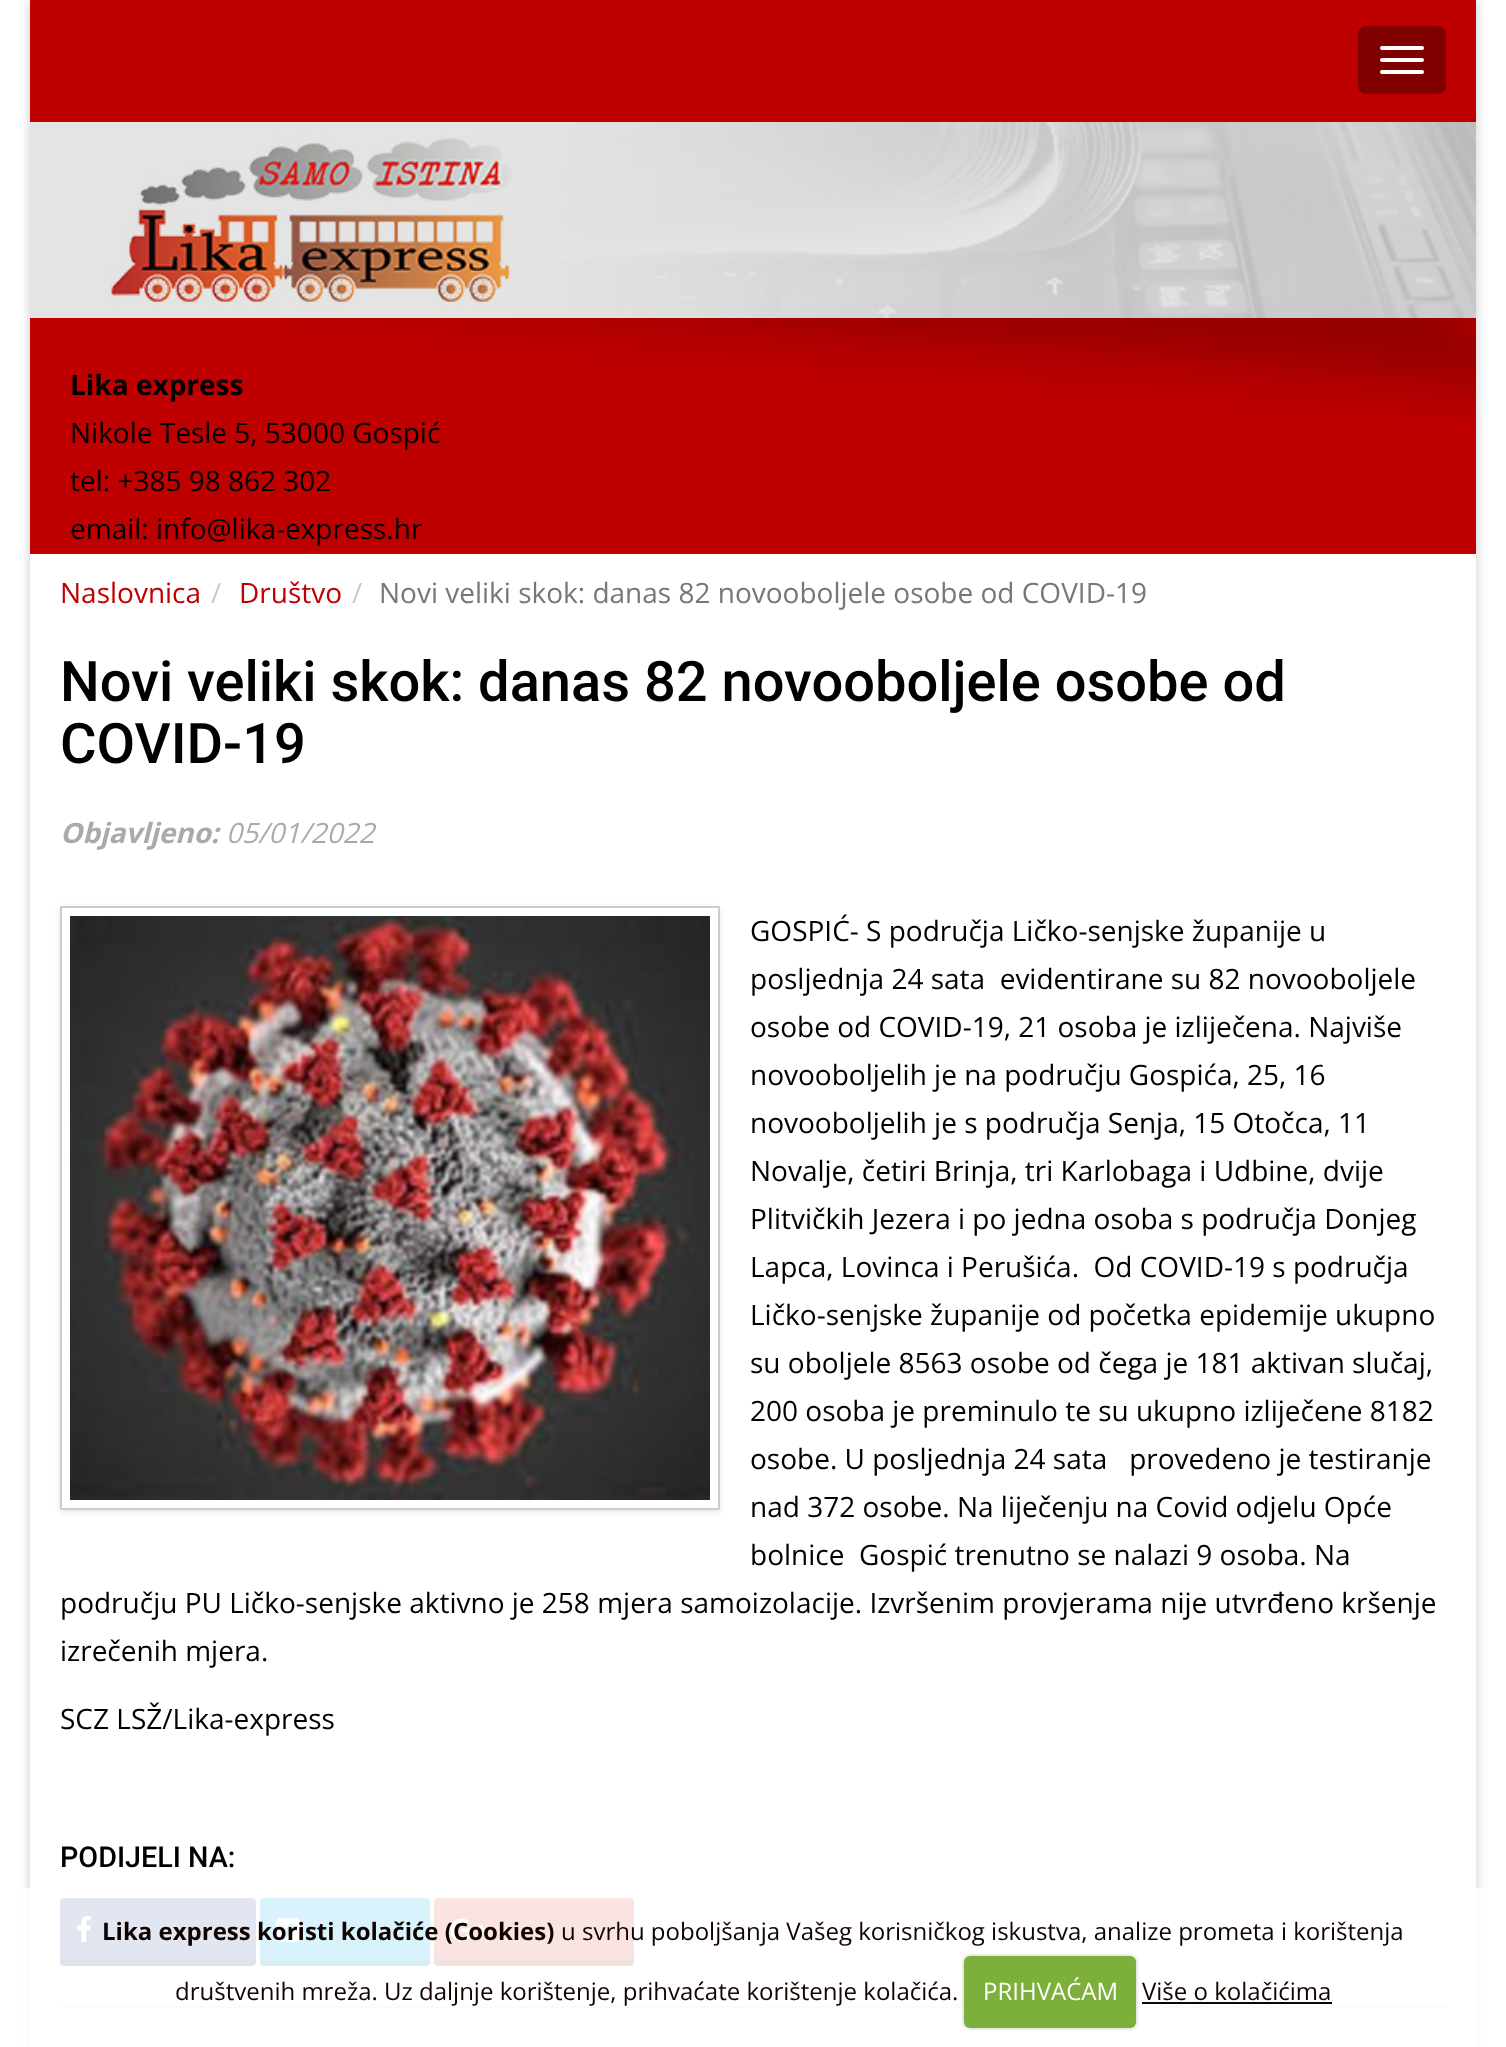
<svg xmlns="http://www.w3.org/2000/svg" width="1506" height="2047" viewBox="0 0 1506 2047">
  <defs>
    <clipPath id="clip1"><path d="M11 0H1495V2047H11ZM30 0H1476V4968H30Z" clip-rule="evenodd"/></clipPath>
    <clipPath id="clip2"><path d="M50 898H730V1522H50ZM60 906H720V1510H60Z" clip-rule="evenodd"/></clipPath>
  </defs>
  <rect width="100%" height="100%" fill="rgb(255,255,255)"/>
  <g clip-path="url(#clip1)">
    <rect x="30" y="0" width="1446" height="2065" fill="rgba(0,0,0,0.2)" filter="blur(6px)"/>
  </g>
  <rect x="30" y="0" width="1446" height="122" fill="rgb(191,0,0)"/>
  <rect x="1359" y="27" width="86" height="66" rx="7" fill="rgb(128,0,0)" stroke="rgb(128,0,0)" stroke-width="2"/>
  <rect x="1380" y="46" width="44" height="4" rx="2" fill="rgb(255,255,255)"/>
  <rect x="1380" y="58" width="44" height="4" rx="2" fill="rgb(255,255,255)"/>
  <rect x="1380" y="70" width="44" height="4" rx="2" fill="rgb(255,255,255)"/>
  <rect x="30" y="318" width="1446" height="236" fill="rgb(191,0,0)"/>
  <image x="30" y="122" width="1446" height="196" href="pic1.png"/>
  <image x="279" y="318" width="1197" height="105" href="pic2.png"/>
  <text x="70" y="395" font-family="Open Sans" font-size="28" font-weight="bold" fill="rgb(0,0,0)">Lika express</text>
  <g font-family="Open Sans" font-size="28" fill="rgb(0,0,0)">
    <text>
      <tspan x="70" y="443">Nikole Tesle 5, 53000 Gospić</tspan>
      <tspan x="70" y="491">tel: +385 98 862 302</tspan>
      <tspan x="70" y="539">email: info@lika-express.hr</tspan>
    </text>
  </g>
  <text x="60" y="603" font-family="Open Sans" font-size="28" fill="rgb(191,0,0)">Naslovnica</text>
  <text x="211" y="603" font-family="Open Sans" font-size="28" fill="rgb(204,204,204)">/</text>
  <text x="239" y="603" font-family="Open Sans" font-size="28" fill="rgb(191,0,0)">Društvo</text>
  <text x="352" y="603" font-family="Open Sans" font-size="28" fill="rgb(204,204,204)">/</text>
  <text x="379" y="603" font-family="Open Sans" font-size="28" fill="rgb(119,119,119)">Novi veliki skok: danas 82 novooboljele osobe od COVID-19</text>
  <g font-family="Roboto" font-size="56" font-weight="500" fill="rgb(0,0,0)">
    <text>
      <tspan x="60" y="701">Novi veliki skok: danas 82 novooboljele osobe od</tspan>
      <tspan x="60" y="763">COVID-19</tspan>
    </text>
  </g>
  <text x="60" y="843" font-family="Open Sans" font-size="28" font-weight="bold" font-style="italic" fill="rgb(170,170,170)">Objavljeno:</text>
  <text x="226" y="843" font-family="Open Sans" font-size="28" font-style="italic" fill="rgb(170,170,170)">05/01/2022</text>
  <g clip-path="url(#clip2)">
    <rect x="60" y="908" width="660" height="604" fill="rgba(0,0,0,0.1)" filter="blur(3px)"/>
  </g>
  <rect x="61" y="907" width="658" height="602" fill="none" stroke="rgb(204,204,204)" stroke-width="2"/>
  <image x="70" y="916" width="640" height="584" href="pic3.png"/>
  <g font-family="Open Sans" font-size="28" fill="rgb(0,0,0)">
    <text xml:space="preserve"><tspan x="750" y="941">GOSPIĆ- S područja Ličko-senjske županije u</tspan><tspan x="750" y="989">posljednja 24 sata  evidentirane su 82 novooboljele</tspan><tspan x="750" y="1037">osobe od COVID-19, 21 osoba je izliječena. Najviše</tspan><tspan x="750" y="1085">novooboljelih je na području Gospića, 25, 16</tspan><tspan x="750" y="1133">novooboljelih je s područja Senja, 15 Otočca, 11</tspan><tspan x="750" y="1181">Novalje, četiri Brinja, tri Karlobaga i Udbine, dvije</tspan><tspan x="750" y="1229">Plitvičkih Jezera i po jedna osoba s područja Donjeg</tspan><tspan x="750" y="1277">Lapca, Lovinca i Perušića.  Od COVID-19 s područja</tspan><tspan x="750" y="1325">Ličko-senjske županije od početka epidemije ukupno</tspan><tspan x="750" y="1373">su oboljele 8563 osobe od čega je 181 aktivan slučaj,</tspan><tspan x="750" y="1421">200 osoba je preminulo te su ukupno izliječene 8182</tspan><tspan x="750" y="1469">osobe. U posljednja 24 sata   provedeno je testiranje</tspan><tspan x="750" y="1517">nad 372 osobe. Na liječenju na Covid odjelu Opće</tspan><tspan x="750" y="1565">bolnice  Gospić trenutno se nalazi 9 osoba. Na</tspan></text>
    <text>
      <tspan x="60" y="1613">području PU Ličko-senjske aktivno je 258 mjera samoizolacije. Izvršenim provjerama nije utvrđeno kršenje</tspan>
      <tspan x="60" y="1661">izrečenih mjera.</tspan>
    </text>
    <text x="60" y="1729">SCZ LSŽ/Lika-express</text>
  </g>
  <rect x="60" y="2006" width="1386" height="2" fill="rgb(228,228,228)"/>
  <text x="60" y="1867" font-family="Roboto" font-size="28.75" font-weight="500" fill="rgb(0,0,0)">PODIJELI NA:</text>
  <rect x="60" y="1898" width="196" height="68" rx="4" fill="rgb(59,89,151)"/>
  <path d="M60 1956V1962C60 1964 62 1966 64 1966H252C254 1966 256 1964 256 1962V1956C256 1958 254 1960 252 1960H64C62 1960 60 1958 60 1956Z" fill="rgba(0,0,0,0.2)"/>
  <image x="77" y="1916" width="14" height="26" href="pic4.png"/>
  <rect x="260" y="1898" width="170" height="68" rx="4" fill="rgb(0,172,237)"/>
  <path d="M260 1956V1962C260 1964 262 1966 264 1966H426C428 1966 430 1964 430 1962V1956C430 1958 428 1960 426 1960H264C262 1960 260 1958 260 1956Z" fill="rgba(0,0,0,0.2)"/>
  <image x="276" y="1918" width="24" height="24" href="pic5.png"/>
  <rect x="434" y="1898" width="200" height="68" rx="4" fill="rgb(214,73,55)"/>
  <path d="M434 1956V1962C434 1964 436 1966 438 1966H630C632 1966 634 1964 634 1962V1956C634 1958 632 1960 630 1960H438C436 1960 434 1958 434 1956Z" fill="rgba(0,0,0,0.2)"/>
  <image x="450" y="1918" width="36" height="24" href="pic6.png"/>
  <rect x="21" y="1888" width="1464" height="159" fill="rgba(255,255,255,0.85)"/>
  <text x="102" y="1940" font-family="Open Sans" font-size="24" font-weight="bold" fill="rgb(17,3,0)">Lika express koristi kolačiće (Cookies)</text>
  <g font-family="Open Sans" font-size="24" fill="rgb(17,3,0)">
    <text x="561" y="1940">u svrhu poboljšanja Vašeg korisničkog iskustva, analize prometa i korištenja</text>
    <text x="175" y="2000">društvenih mreža. Uz daljnje korištenje, prihvaćate korištenje kolačića.</text>
  </g>
  <rect x="964" y="1956" width="172" height="72" rx="6" fill="rgba(0,0,0,0.25)" filter="blur(2px)"/>
  <rect x="964" y="1956" width="172" height="72" rx="6" fill="rgb(125,175,59)"/>
  <text x="983" y="2000" font-family="Open Sans" font-size="24" fill="rgb(255,255,255)">PRIHVAĆAM</text>
  <text x="1142" y="2000" font-family="Open Sans" font-size="24" fill="rgb(17,3,0)">Više o kolačićima</text>
  <rect x="1142" y="2002" width="190" height="2" fill="rgb(17,3,0)"/>
</svg>
